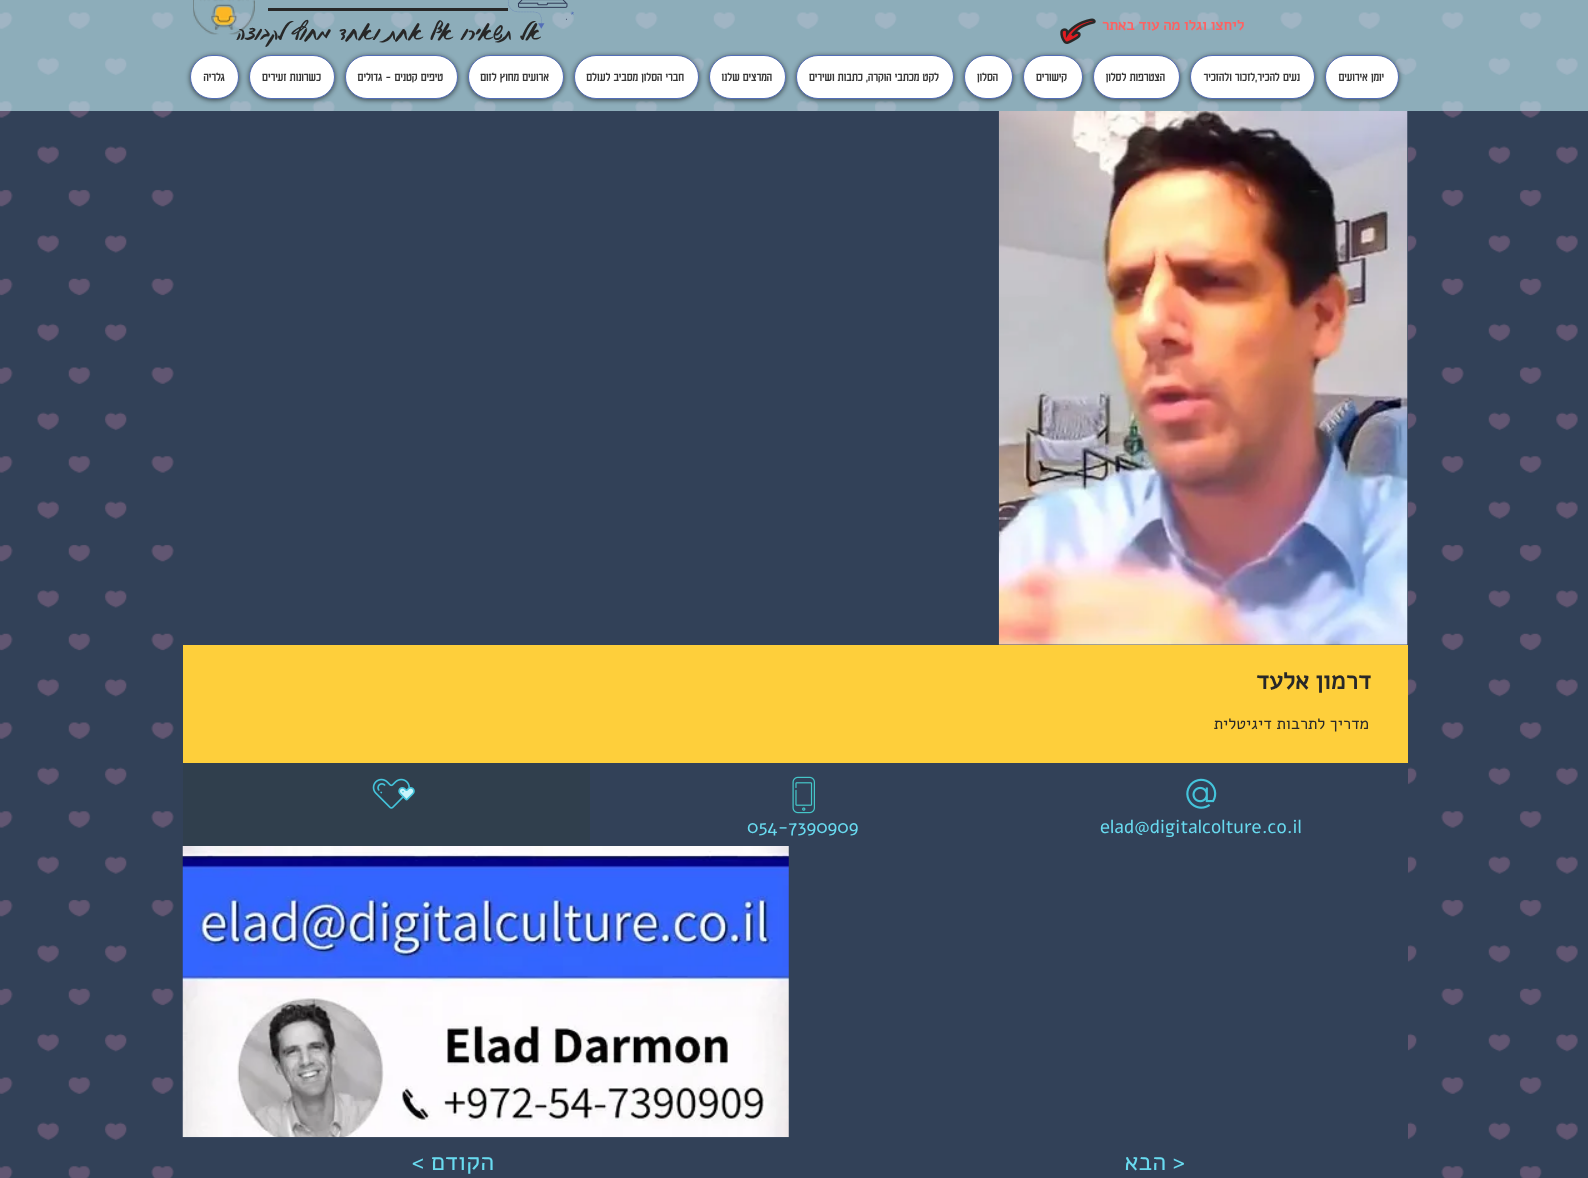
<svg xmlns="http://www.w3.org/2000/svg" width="1588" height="1178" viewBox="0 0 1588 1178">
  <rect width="100%" height="100%" fill="rgb(50,65,88)"/>
  <image x="0" y="12" width="1578" height="1166" href="pic1.png"/>
  <rect x="0" y="0" width="1588" height="111" fill="rgba(202,245,252,0.6)"/>
  <image x="508" y="0" width="66" height="29" href="pic2.png"/>
  <rect x="268" y="8" width="240" height="3" fill="rgb(40,40,40)"/>
  <image x="193" y="0" width="62" height="35" href="pic3.png"/>
  <text x="1244" y="30" font-family="Alef" font-size="15" font-weight="bold" direction="rtl" fill="rgb(255,97,97)">ליחצו וגלו מה עוד באתר</text>
  <image x="1060" y="18" width="36" height="26" href="pic4.png"/>
  <text x="541" y="40" font-family="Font" font-size="31.25" font-weight="500" direction="rtl" fill="rgb(40,40,40)">אל תשאירו אף אחת ואחד מחוץ לקבוצה</text>
  <rect x="1325" y="56" width="74" height="44" rx="22" fill="rgba(0,0,0,0.6)" filter="blur(2.5px)"/>
  <rect x="1325.5" y="55.5" width="73" height="43" rx="21.5" fill="rgb(255,255,255)" stroke="rgb(83,110,183)"/>
  <text x="1384" y="81" font-family="'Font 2'" font-size="12.5" font-weight="500" direction="rtl" fill="rgb(56,56,56)">יומן אירועים</text>
  <rect x="1190" y="56" width="125" height="44" rx="22" fill="rgba(0,0,0,0.6)" filter="blur(2.5px)"/>
  <rect x="1190.5" y="55.5" width="124" height="43" rx="21.5" fill="rgb(255,255,255)" stroke="rgb(83,110,183)"/>
  <text x="1300" y="81" font-family="'Font 2'" font-size="12.5" font-weight="500" direction="rtl" fill="rgb(56,56,56)">נעים להכיר,לזכור ולהזכיר</text>
  <rect x="1093" y="56" width="87" height="44" rx="22" fill="rgba(0,0,0,0.6)" filter="blur(2.5px)"/>
  <rect x="1093.5" y="55.5" width="86" height="43" rx="21.5" fill="rgb(255,255,255)" stroke="rgb(83,110,183)"/>
  <text x="1165" y="81" font-family="'Font 2'" font-size="12.5" font-weight="500" direction="rtl" fill="rgb(56,56,56)">הצטרפות לסלון</text>
  <rect x="1023" y="56" width="60" height="44" rx="22" fill="rgba(0,0,0,0.6)" filter="blur(2.5px)"/>
  <rect x="1023.5" y="55.5" width="59" height="43" rx="21.5" fill="rgb(255,255,255)" stroke="rgb(83,110,183)"/>
  <text x="1067" y="81" font-family="'Font 2'" font-size="12.5" font-weight="500" direction="rtl" fill="rgb(56,56,56)">קישורים</text>
  <rect x="964" y="56" width="49" height="44" rx="22" fill="rgba(0,0,0,0.6)" filter="blur(2.5px)"/>
  <rect x="964.5" y="55.5" width="48" height="43" rx="21.5" fill="rgb(255,255,255)" stroke="rgb(83,110,183)"/>
  <text x="998" y="81" font-family="'Font 2'" font-size="12.5" font-weight="500" direction="rtl" fill="rgb(56,56,56)">הסלון</text>
  <rect x="796" y="56" width="158" height="44" rx="22" fill="rgba(0,0,0,0.6)" filter="blur(2.5px)"/>
  <rect x="796.5" y="55.5" width="157" height="43" rx="21.5" fill="rgb(255,255,255)" stroke="rgb(83,110,183)"/>
  <text x="939" y="81" font-family="'Font 2'" font-size="12.5" font-weight="500" direction="rtl" fill="rgb(56,56,56)">לקט מכתבי הוקרה, כתבות ושירים</text>
  <rect x="709" y="56" width="77" height="44" rx="22" fill="rgba(0,0,0,0.6)" filter="blur(2.5px)"/>
  <rect x="709.5" y="55.5" width="76" height="43" rx="21.5" fill="rgb(255,255,255)" stroke="rgb(83,110,183)"/>
  <text x="772" y="81" font-family="'Font 2'" font-size="12.5" font-weight="500" direction="rtl" fill="rgb(56,56,56)">המרצים שלנו</text>
  <rect x="574" y="56" width="125" height="44" rx="22" fill="rgba(0,0,0,0.6)" filter="blur(2.5px)"/>
  <rect x="574.5" y="55.5" width="124" height="43" rx="21.5" fill="rgb(255,255,255)" stroke="rgb(83,110,183)"/>
  <text x="684" y="81" font-family="'Font 2'" font-size="12.5" font-weight="500" direction="rtl" fill="rgb(56,56,56)">חברי הסלון מסביב לעולם</text>
  <rect x="468" y="56" width="96" height="44" rx="22" fill="rgba(0,0,0,0.6)" filter="blur(2.5px)"/>
  <rect x="468.5" y="55.5" width="95" height="43" rx="21.5" fill="rgb(255,255,255)" stroke="rgb(83,110,183)"/>
  <text x="549" y="81" font-family="'Font 2'" font-size="12.5" font-weight="500" direction="rtl" fill="rgb(56,56,56)">ארועים מחוץ לזום</text>
  <rect x="345" y="56" width="113" height="44" rx="22" fill="rgba(0,0,0,0.6)" filter="blur(2.5px)"/>
  <rect x="345.5" y="55.5" width="112" height="43" rx="21.5" fill="rgb(255,255,255)" stroke="rgb(83,110,183)"/>
  <text x="443" y="81" font-family="'Font 2'" font-size="12.5" font-weight="500" direction="rtl" fill="rgb(56,56,56)">טיפים קטנים - גדולים</text>
  <rect x="249" y="56" width="86" height="44" rx="22" fill="rgba(0,0,0,0.6)" filter="blur(2.5px)"/>
  <rect x="249.5" y="55.5" width="85" height="43" rx="21.5" fill="rgb(255,255,255)" stroke="rgb(83,110,183)"/>
  <text x="321" y="81" font-family="'Font 2'" font-size="12.5" font-weight="500" direction="rtl" fill="rgb(56,56,56)">כשרונות זעירים</text>
  <rect x="190" y="56" width="49" height="44" rx="22" fill="rgba(0,0,0,0.6)" filter="blur(2.5px)"/>
  <rect x="190.5" y="55.5" width="48" height="43" rx="21.5" fill="rgb(255,255,255)" stroke="rgb(83,110,183)"/>
  <text x="225" y="81" font-family="'Font 2'" font-size="12.5" font-weight="500" direction="rtl" fill="rgb(56,56,56)">גלריה</text>
  <rect x="198" y="111" width="1210" height="1067" fill="rgb(50,65,88)"/>
  <image x="998" y="111" width="410" height="534" href="pic5.png"/>
  <rect x="183" y="645" width="1225" height="118" fill="rgb(254,207,59)"/>
  <text x="1371" y="689" font-family="Alef" font-size="25" font-weight="bold" direction="rtl" fill="rgb(40,40,40)">דרמון אלעד</text>
  <text x="1369" y="729" font-family="Alef" font-size="16.25" direction="rtl" fill="rgb(40,40,40)">מדריך לתרבות דיגיטלית</text>
  <image x="1186" y="778" width="31" height="31" href="pic6.png"/>
  <text x="1100" y="833" font-family="Alef" font-size="18.75" fill="rgb(105,219,240)">elad@digitalcolture.co.il</text>
  <image x="792" y="776" width="23" height="38" href="pic7.png"/>
  <text x="747" y="833" font-family="Alef" font-size="18.75" fill="rgb(105,219,240)">054-7390909</text>
  <rect x="183" y="763" width="407" height="83" fill="rgb(48,63,77)"/>
  <image x="372" y="778" width="43" height="31" href="pic8.png"/>
  <image x="182" y="846" width="607" height="292" href="pic9.png"/>
  <text x="1173" y="1170" font-family="Alef" font-size="25" fill="rgb(105,219,240)">&gt;</text>
  <g font-family="Alef" font-size="25" direction="rtl" fill="rgb(105,219,240)">
    <text x="1166" y="1170">הבא</text>
    <text x="494" y="1170">הקודם</text>
  </g>
  <text x="412" y="1170" font-family="Alef" font-size="25" fill="rgb(105,219,240)">&lt;</text>
</svg>
